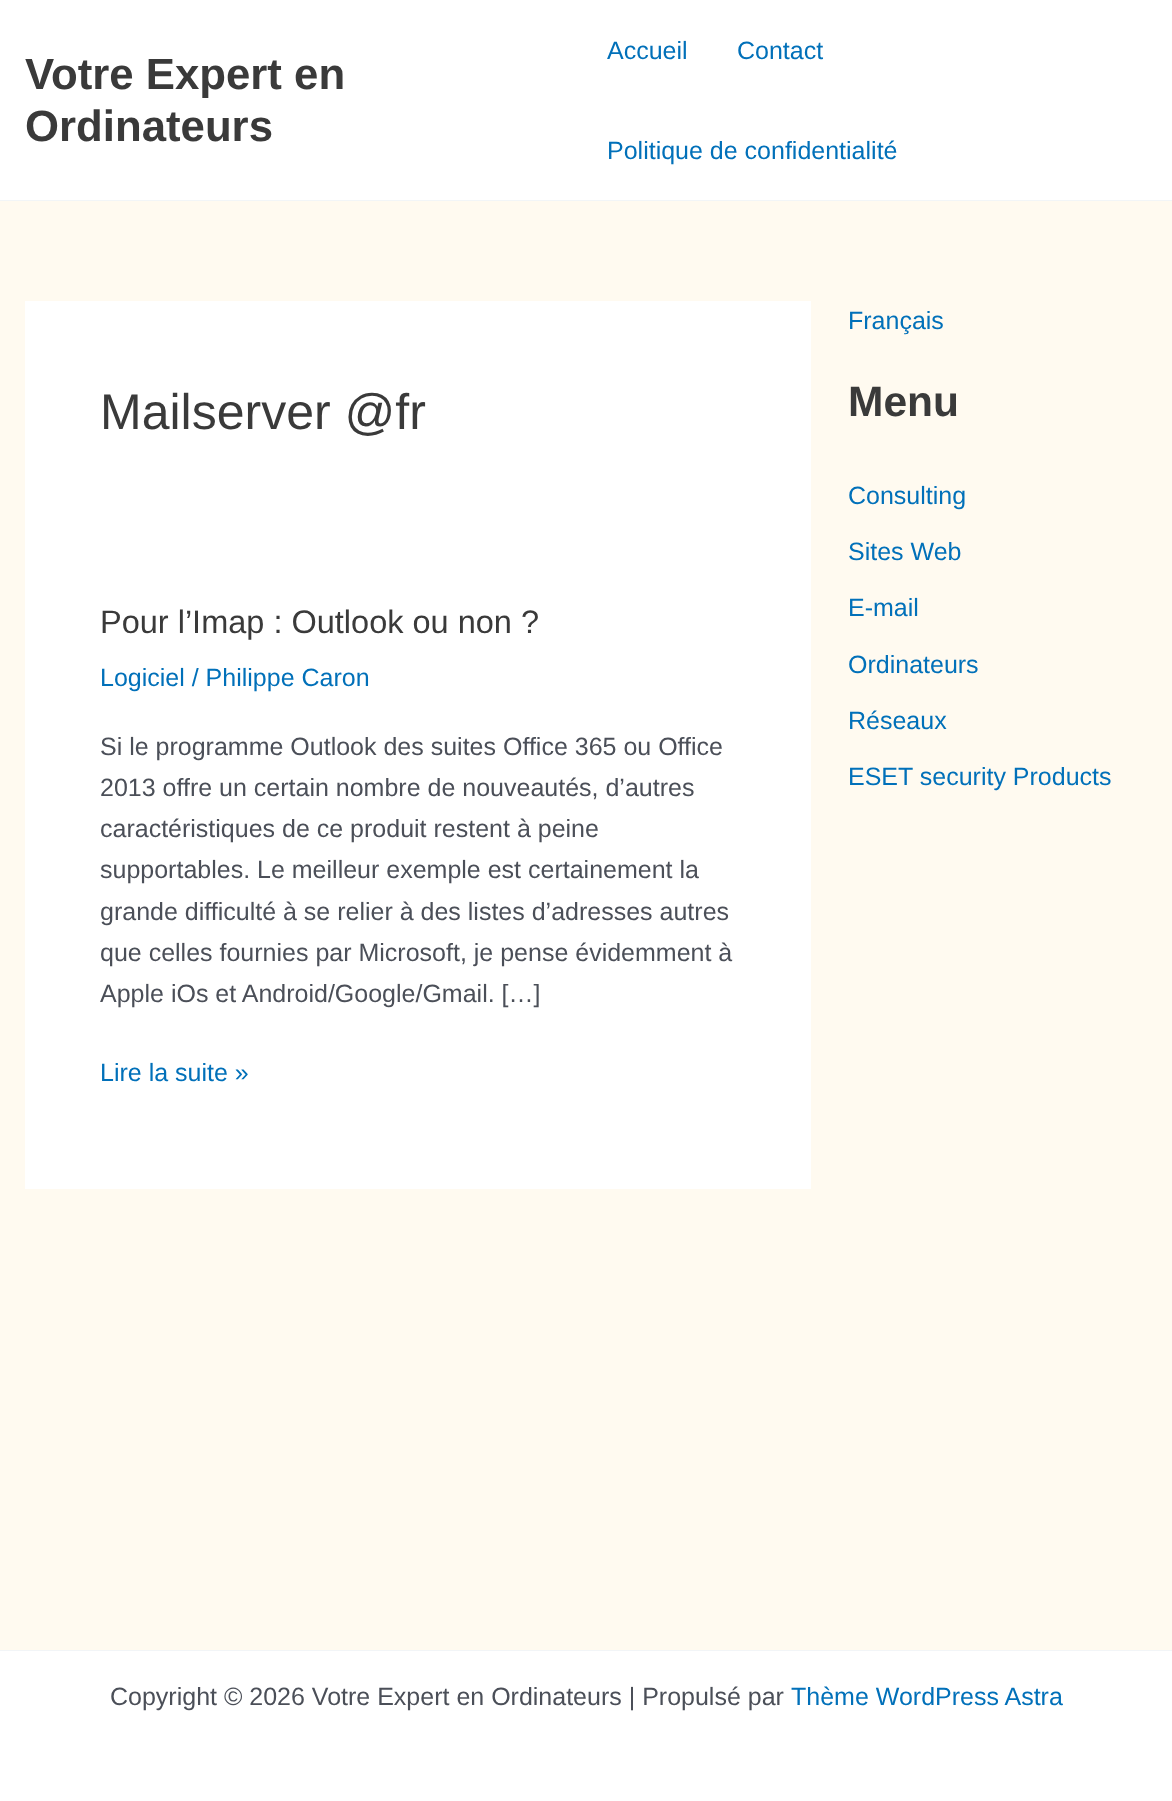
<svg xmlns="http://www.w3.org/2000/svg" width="1172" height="1801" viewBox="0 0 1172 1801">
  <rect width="100%" height="100%" fill="rgb(255,250,240)"/>
  <rect x="0" y="0" width="1172" height="200" fill="rgb(255,255,255)"/>
  <rect x="0" y="200" width="1172" height="1" fill="rgb(242,245,247)"/>
  <g font-family="Liberation Sans" font-size="43.75" font-weight="bold" fill="rgb(58,58,58)">
    <text>
      <tspan x="25" y="89">Votre Expert en</tspan>
      <tspan x="25" y="141">Ordinateurs</tspan>
    </text>
  </g>
  <g font-family="Liberation Sans" font-size="25" fill="rgb(1,112,185)">
    <text x="607" y="59">Accueil</text>
    <text x="737" y="59">Contact</text>
    <text x="607" y="159">Politique de confidentialité</text>
  </g>
  <rect x="25" y="301" width="786" height="888" fill="rgb(255,255,255)"/>
  <text x="100" y="429" font-family="Liberation Sans" font-size="50" fill="rgb(58,58,58)">Mailserver @fr</text>
  <text x="100" y="633" font-family="Liberation Sans" font-size="32.5" fill="rgb(58,58,58)">Pour l’Imap : Outlook ou non ?</text>
  <text x="100" y="686" font-family="Liberation Sans" font-size="25" fill="rgb(1,112,185)">Logiciel / Philippe Caron</text>
  <g font-family="Liberation Sans" font-size="25" fill="rgb(75,79,88)">
    <text>
      <tspan x="100" y="755">Si le programme Outlook des suites Office 365 ou Office</tspan>
      <tspan x="100" y="796">2013 offre un certain nombre de nouveautés, d’autres</tspan>
      <tspan x="100" y="837">caractéristiques de ce produit restent à peine</tspan>
      <tspan x="100" y="878">supportables. Le meilleur exemple est certainement la</tspan>
      <tspan x="100" y="920">grande difficulté à se relier à des listes d’adresses autres</tspan>
      <tspan x="100" y="961">que celles fournies par Microsoft, je pense évidemment à</tspan>
      <tspan x="100" y="1002">Apple iOs et Android/Google/Gmail. […]</tspan>
    </text>
  </g>
  <g font-family="Liberation Sans" font-size="25" fill="rgb(1,112,185)">
    <text x="100" y="1081">Lire la suite »</text>
    <text x="848" y="329">Français</text>
  </g>
  <text x="848" y="416" font-family="Liberation Sans" font-size="42.5" font-weight="bold" fill="rgb(58,58,58)">Menu</text>
  <g font-family="Liberation Sans" font-size="25" fill="rgb(1,112,185)">
    <text x="848" y="504">Consulting</text>
    <text x="848" y="560">Sites Web</text>
    <text x="848" y="616">E-mail</text>
    <text x="848" y="673">Ordinateurs</text>
    <text x="848" y="729">Réseaux</text>
    <text x="848" y="785">ESET security Products</text>
  </g>
  <rect x="0" y="1651" width="1172" height="150" fill="rgb(255,255,255)"/>
  <rect x="0" y="1650" width="1172" height="1" fill="rgb(242,245,247)"/>
  <text x="110" y="1705" font-family="Liberation Sans" font-size="25" fill="rgb(75,79,88)">Copyright © 2026 Votre Expert en Ordinateurs | Propulsé par</text>
  <text x="791" y="1705" font-family="Liberation Sans" font-size="25" fill="rgb(1,112,185)">Thème WordPress Astra</text>
</svg>
